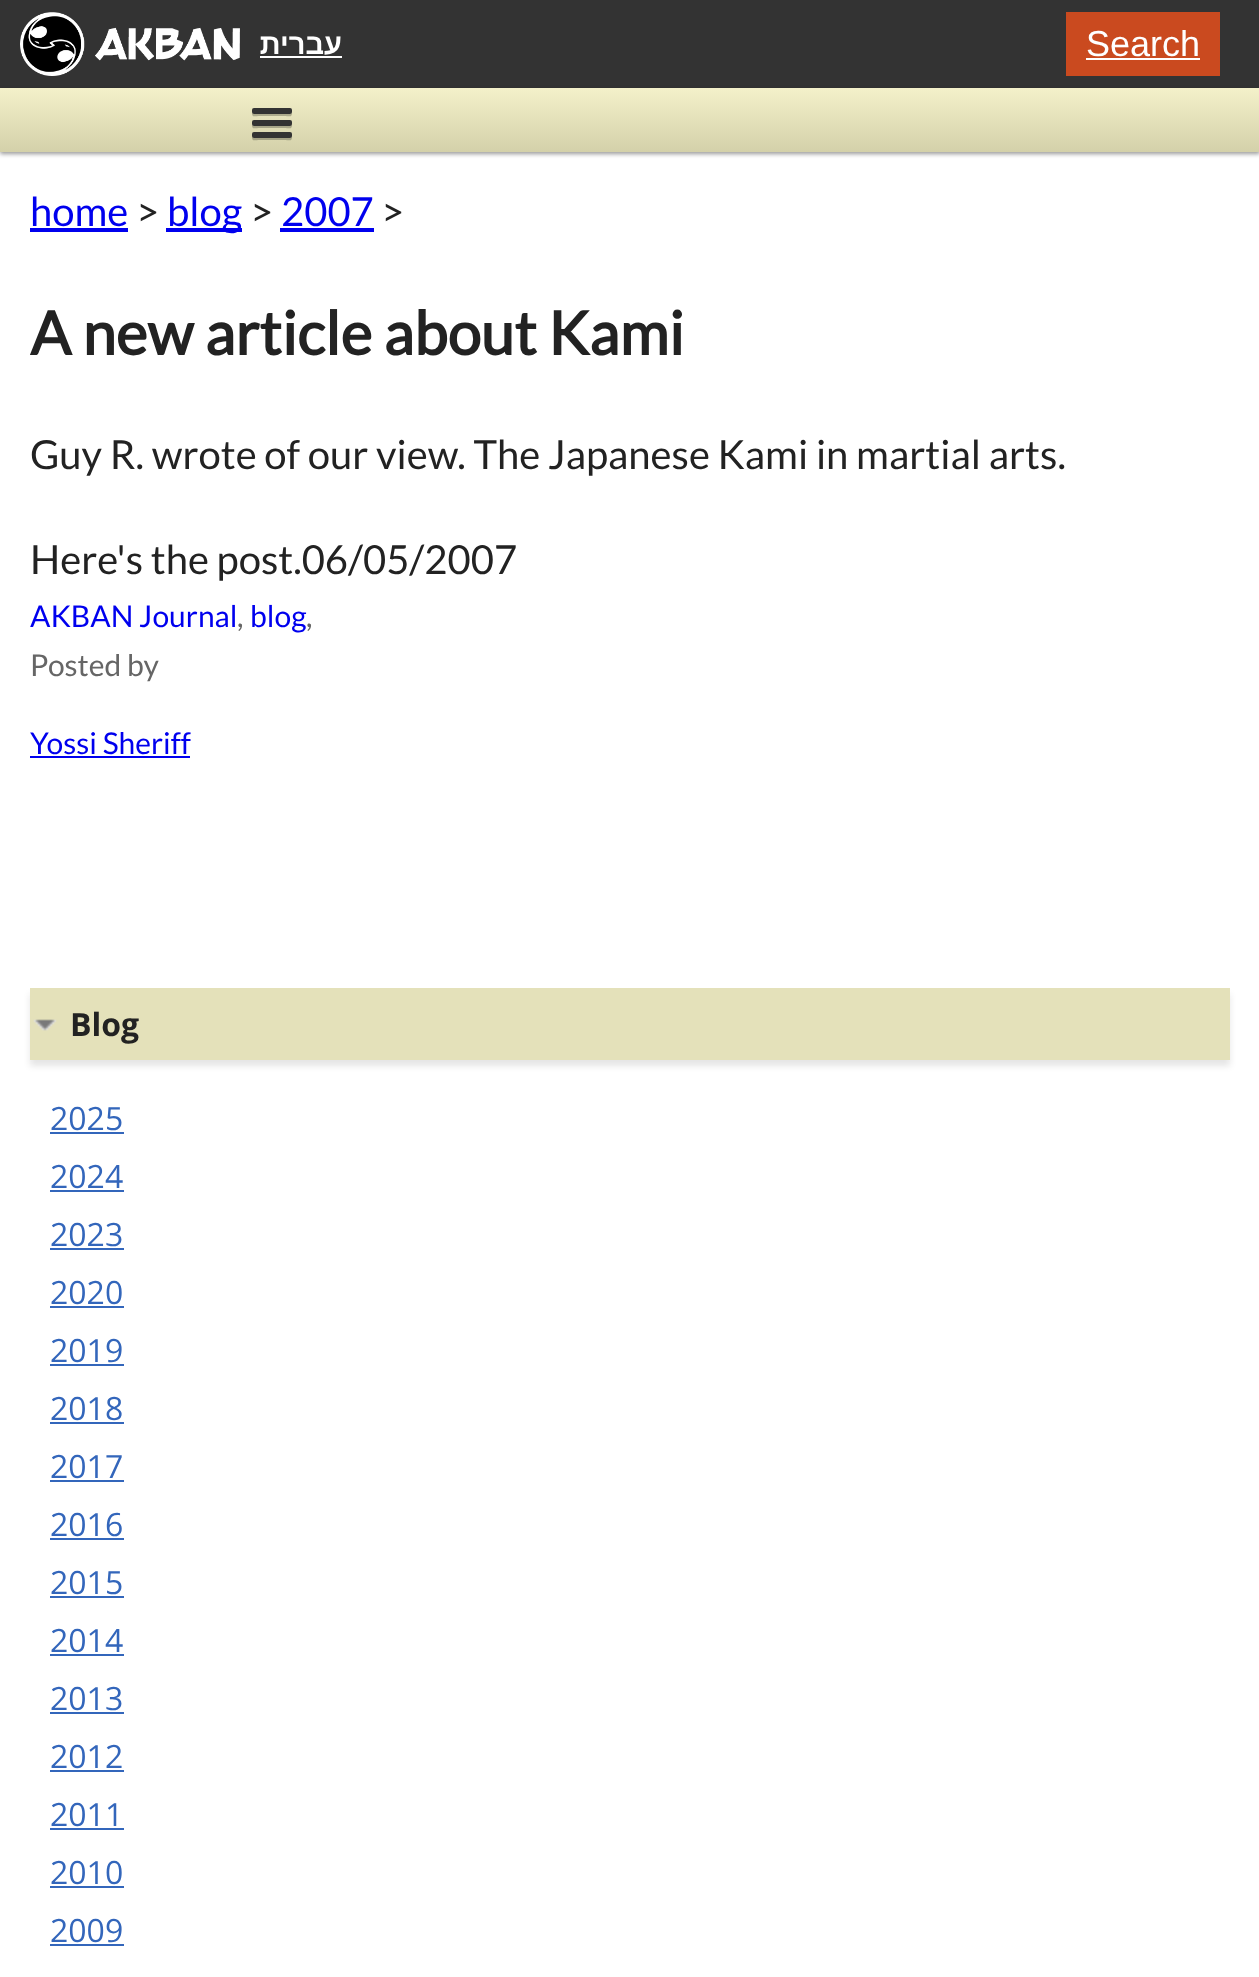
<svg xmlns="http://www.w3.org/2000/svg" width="1259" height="1977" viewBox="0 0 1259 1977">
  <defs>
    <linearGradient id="g1" gradientUnits="userSpaceOnUse" x1="630" y1="88" x2="630" y2="152"><stop offset="0" stop-color="rgb(244,241,202)"/><stop offset="1" stop-color="rgb(212,209,170)"/></linearGradient>
  </defs>
  <rect width="100%" height="100%" fill="rgb(255,255,255)"/>
  <rect x="0" y="0" width="1259" height="88" fill="rgb(51,51,51)"/>
  <image x="20" y="12" width="220" height="64" href="pic1.png"/>
  <text x="342" y="54" font-family="Liberation Sans" font-size="29" font-weight="bold" direction="rtl" fill="rgb(255,255,255)">עברית</text>
  <rect x="260" y="56" width="82" height="2" fill="rgb(255,255,255)"/>
  <rect x="1066" y="12" width="154" height="64" fill="rgb(202,74,31)"/>
  <text x="1086" y="56" font-family="Liberation Sans" font-size="36" fill="rgb(255,255,255)">Search</text>
  <rect x="1086" y="58" width="114" height="2" fill="rgb(255,255,255)"/>
  <rect x="0" y="90" width="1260" height="64" fill="rgba(0,0,0,0.4)" filter="blur(2px)"/>
  <rect x="0" y="88" width="1259" height="64" fill="url(#g1)"/>
  <path d="M252 112C252 118 254 116 260 116H284C290 116 292 118 292 112C292 113 291 114 290 114H254C253 114 252 113 252 112Z" fill="rgb(173,171,141)"/>
  <rect x="252" y="108" width="40" height="6" rx="2" fill="rgb(51,51,51)"/>
  <path d="M252 124C252 130 254 128 260 128H284C290 128 292 130 292 124C292 125 291 126 290 126H254C253 126 252 125 252 124Z" fill="rgb(168,166,137)"/>
  <rect x="252" y="120" width="40" height="6" rx="2" fill="rgb(51,51,51)"/>
  <path d="M252 136C252 142 254 140 260 140H284C290 140 292 142 292 136C292 137 291 138 290 138H254C253 138 252 137 252 136Z" fill="rgb(164,162,132)"/>
  <rect x="252" y="132" width="40" height="6" rx="2" fill="rgb(51,51,51)"/>
  <text x="30" y="226" font-family="Lato" font-size="40" fill="rgb(0,0,238)">home</text>
  <rect x="30" y="228" width="98" height="4" fill="rgb(0,0,238)"/>
  <text x="136" y="226" font-family="Lato" font-size="40" fill="rgb(34,34,34)">&gt;</text>
  <rect x="166" y="228" width="76" height="4" fill="rgb(0,0,238)"/>
  <text x="167" y="226" font-family="Lato" font-size="40" fill="rgb(0,0,238)">blog</text>
  <text x="250" y="226" font-family="Lato" font-size="40" fill="rgb(34,34,34)">&gt;</text>
  <text x="281" y="226" font-family="Lato" font-size="40" fill="rgb(0,0,238)">2007</text>
  <rect x="280" y="228" width="94" height="4" fill="rgb(0,0,238)"/>
  <text x="381" y="226" font-family="Lato" font-size="40" fill="rgb(34,34,34)">&gt;</text>
  <text x="30" y="355" font-family="Lato" font-size="60" font-weight="bold" fill="rgb(34,34,34)">A new article about Kami</text>
  <g font-family="Lato" font-size="40" fill="rgb(34,34,34)">
    <text x="30" y="469">Guy R. wrote of our view. The Japanese Kami in martial arts.</text>
    <text x="30" y="574">Here's the post.06/05/2007</text>
  </g>
  <text x="30" y="627" font-family="Lato" font-size="30" fill="rgb(0,0,238)">AKBAN Journal</text>
  <text x="237" y="627" font-family="Lato" font-size="30" fill="rgb(102,102,102)">,</text>
  <text x="250" y="627" font-family="Lato" font-size="30" fill="rgb(0,0,238)">blog</text>
  <g font-family="Lato" font-size="30" fill="rgb(102,102,102)">
    <text x="306" y="627">,</text>
    <text x="30" y="676">Posted by</text>
  </g>
  <text x="30" y="754" font-family="Lato" font-size="30" fill="rgb(0,0,238)">Yossi Sheriff</text>
  <rect x="30" y="756" width="160" height="2" fill="rgb(0,0,238)"/>
  <rect x="30" y="994" width="1200" height="72" fill="rgba(0,0,0,0.1)" filter="blur(3px)"/>
  <rect x="30" y="988" width="1200" height="72" fill="rgb(228,225,186)"/>
  <image x="33" y="1019" width="24" height="12" href="pic2.png"/>
  <text x="70" y="1036" font-family="Open Sans" font-size="32" font-weight="bold" fill="rgb(34,34,34)">Blog</text>
  <text x="50" y="1130" font-family="Open Sans" font-size="32" fill="rgb(51,102,187)">2025</text>
  <rect x="50" y="1132" width="74" height="2" fill="rgb(51,102,187)"/>
  <text x="50" y="1188" font-family="Open Sans" font-size="32" fill="rgb(51,102,187)">2024</text>
  <rect x="50" y="1190" width="74" height="2" fill="rgb(51,102,187)"/>
  <text x="50" y="1246" font-family="Open Sans" font-size="32" fill="rgb(51,102,187)">2023</text>
  <rect x="50" y="1248" width="74" height="2" fill="rgb(51,102,187)"/>
  <text x="50" y="1304" font-family="Open Sans" font-size="32" fill="rgb(51,102,187)">2020</text>
  <rect x="50" y="1306" width="74" height="2" fill="rgb(51,102,187)"/>
  <text x="50" y="1362" font-family="Open Sans" font-size="32" fill="rgb(51,102,187)">2019</text>
  <rect x="50" y="1364" width="74" height="2" fill="rgb(51,102,187)"/>
  <text x="50" y="1420" font-family="Open Sans" font-size="32" fill="rgb(51,102,187)">2018</text>
  <rect x="50" y="1422" width="74" height="2" fill="rgb(51,102,187)"/>
  <text x="50" y="1478" font-family="Open Sans" font-size="32" fill="rgb(51,102,187)">2017</text>
  <rect x="50" y="1480" width="74" height="2" fill="rgb(51,102,187)"/>
  <text x="50" y="1536" font-family="Open Sans" font-size="32" fill="rgb(51,102,187)">2016</text>
  <rect x="50" y="1538" width="74" height="2" fill="rgb(51,102,187)"/>
  <text x="50" y="1594" font-family="Open Sans" font-size="32" fill="rgb(51,102,187)">2015</text>
  <rect x="50" y="1596" width="74" height="2" fill="rgb(51,102,187)"/>
  <text x="50" y="1652" font-family="Open Sans" font-size="32" fill="rgb(51,102,187)">2014</text>
  <rect x="50" y="1654" width="74" height="2" fill="rgb(51,102,187)"/>
  <text x="50" y="1710" font-family="Open Sans" font-size="32" fill="rgb(51,102,187)">2013</text>
  <rect x="50" y="1712" width="74" height="2" fill="rgb(51,102,187)"/>
  <text x="50" y="1768" font-family="Open Sans" font-size="32" fill="rgb(51,102,187)">2012</text>
  <rect x="50" y="1770" width="74" height="2" fill="rgb(51,102,187)"/>
  <text x="50" y="1826" font-family="Open Sans" font-size="32" fill="rgb(51,102,187)">2011</text>
  <rect x="50" y="1828" width="74" height="2" fill="rgb(51,102,187)"/>
  <text x="50" y="1884" font-family="Open Sans" font-size="32" fill="rgb(51,102,187)">2010</text>
  <rect x="50" y="1886" width="74" height="2" fill="rgb(51,102,187)"/>
  <text x="50" y="1942" font-family="Open Sans" font-size="32" fill="rgb(51,102,187)">2009</text>
  <rect x="50" y="1944" width="74" height="2" fill="rgb(51,102,187)"/>
</svg>
